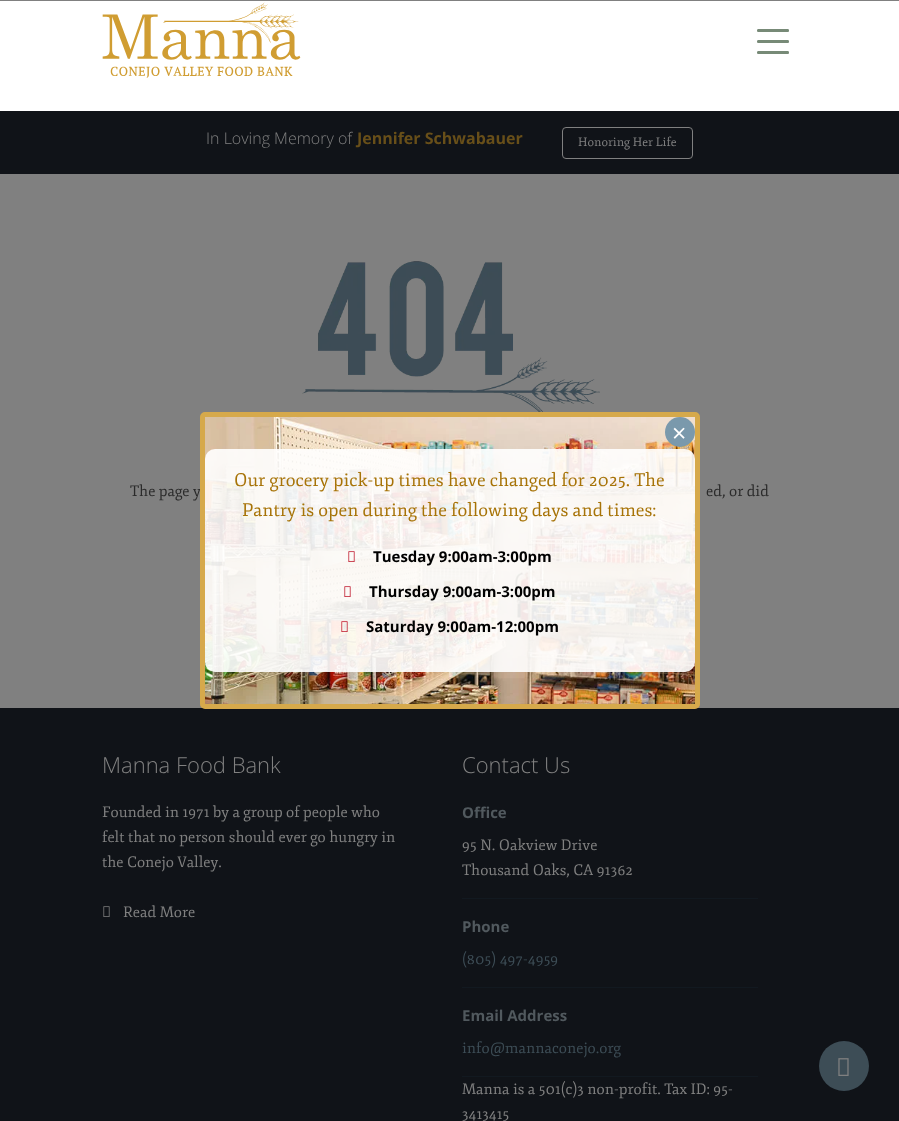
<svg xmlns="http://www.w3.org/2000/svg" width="899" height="1121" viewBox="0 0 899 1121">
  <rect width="100%" height="100%" fill="rgb(128,128,128)"/>
  <rect x="0" y="1" width="899" height="110" fill="rgb(255,255,255)"/>
  <image x="102" y="2" width="199" height="76" href="pic1.png"/>
  <path d="M758.5 29H773V32H758.5C757.5 32 757 31.5 757 30.5C757 29.5 757.5 29 758.5 29Z" fill="rgb(119,138,119)"/>
  <path d="M773 29H787.5C788.5 29 789 29.5 789 30.5C789 31.5 788.5 32 787.5 32H773Z" fill="rgb(119,138,119)"/>
  <path d="M758.5 40H773V43H758.5C757.5 43 757 42.5 757 41.5C757 40.5 757.5 40 758.5 40Z" fill="rgb(119,138,119)"/>
  <path d="M773 40H787.5C788.5 40 789 40.5 789 41.5C789 42.5 788.5 43 787.5 43H773Z" fill="rgb(119,138,119)"/>
  <path d="M758.5 51H773V54H758.5C757.5 54 757 53.5 757 52.5C757 51.5 757.5 51 758.5 51Z" fill="rgb(119,138,119)"/>
  <path d="M773 51H787.5C788.5 51 789 51.5 789 52.5C789 53.5 788.5 54 787.5 54H773Z" fill="rgb(119,138,119)"/>
  <rect x="0" y="111" width="899" height="63" fill="rgb(16,19,24)"/>
  <text x="206" y="144" font-family="Open Sans" font-size="16" font-weight="300" fill="rgb(128,128,128)">In Loving Memory of</text>
  <text x="357" y="144" font-family="Open Sans" font-size="16" font-weight="bold" fill="rgb(104,79,25)">Jennifer Schwabauer</text>
  <rect x="562.5" y="127.5" width="130" height="31" rx="3.5" fill="none" stroke="rgb(128,128,128)"/>
  <text x="578" y="146" font-family="Fjord" font-size="12" fill="rgb(128,128,128)">Honoring Her Life</text>
  <image x="205" y="417" width="490" height="287" href="pic2.png"/>
  <text x="130" y="496" font-family="Fjord" font-size="15" fill="rgb(42,42,42)">The page y</text>
  <rect x="0" y="708" width="899" height="413" fill="rgb(16,19,24)"/>
  <rect x="202.5" y="414.5" width="495" height="292" rx="2.5" fill="none" stroke="rgb(214,169,75)" stroke-width="5"/>
  <circle cx="680" cy="432" r="15" fill="rgb(122,153,172)"/>
  <text x="672" y="442" font-family="Open Sans" font-size="25" fill="rgb(255,255,255)">×</text>
  <rect x="205" y="449" width="490" height="223" rx="10" fill="rgba(255,255,255,0.9)"/>
  <g font-family="Fjord" font-size="18" fill="rgb(167,115,7)">
    <text x="234" y="486">Our grocery pick-up times have changed for 2025. The</text>
    <text x="242" y="516">Pantry is open during the following days and times:</text>
  </g>
  <image x="348" y="551" width="7" height="11" href="pic3.png"/>
  <text x="373" y="562" font-family="Open Sans" font-size="15" font-weight="bold" fill="rgb(0,0,0)">Tuesday 9:00am-3:00pm</text>
  <image x="344" y="586" width="7" height="11" href="pic4.png"/>
  <text x="369" y="597" font-family="Open Sans" font-size="15" font-weight="bold" fill="rgb(0,0,0)">Thursday 9:00am-3:00pm</text>
  <image x="341" y="621" width="7" height="11" href="pic5.png"/>
  <text x="366" y="632" font-family="Open Sans" font-size="15" font-weight="bold" fill="rgb(0,0,0)">Saturday 9:00am-12:00pm</text>
  <image x="302" y="261" width="298" height="151" href="pic6.png"/>
  <text x="706" y="496" font-family="Fjord" font-size="15" fill="rgb(42,42,42)">ed, or did</text>
  <text x="102" y="773" font-family="Open Sans" font-size="22" font-weight="300" fill="rgb(128,128,128)">Manna Food Bank</text>
  <g font-family="Fjord" font-size="15" fill="rgb(128,128,128)">
    <text>
      <tspan x="102" y="817">Founded in 1971 by a group of people who</tspan>
      <tspan x="102" y="842">felt that no person should ever go hungry in</tspan>
      <tspan x="102" y="867">the Conejo Valley.</tspan>
    </text>
  </g>
  <image x="103" y="906" width="7" height="11" href="pic7.png"/>
  <text x="123" y="917" font-family="Fjord" font-size="15" fill="rgb(128,128,128)">Read More</text>
  <text x="462" y="773" font-family="Open Sans" font-size="22" font-weight="300" fill="rgb(128,128,128)">Contact Us</text>
  <rect x="462" y="898" width="296" height="1" fill="rgb(18,25,32)"/>
  <text x="462" y="818" font-family="Open Sans" font-size="15" font-weight="bold" fill="rgb(81,89,94)">Office</text>
  <g font-family="Fjord" font-size="15" fill="rgb(128,128,128)">
    <text>
      <tspan x="462" y="850">95 N. Oakview Drive</tspan>
      <tspan x="462" y="875">Thousand Oaks, CA 91362</tspan>
    </text>
  </g>
  <rect x="462" y="987" width="296" height="1" fill="rgb(18,25,32)"/>
  <text x="462" y="932" font-family="Open Sans" font-size="15" font-weight="bold" fill="rgb(81,89,94)">Phone</text>
  <text x="462" y="964" font-family="Fjord" font-size="15" fill="rgb(61,77,86)">(805) 497-4959</text>
  <rect x="462" y="1076" width="296" height="1" fill="rgb(18,25,32)"/>
  <text x="462" y="1021" font-family="Open Sans" font-size="15" font-weight="bold" fill="rgb(81,89,94)">Email Address</text>
  <text x="462" y="1053" font-family="Fjord" font-size="15" fill="rgb(61,77,86)">info@mannaconejo.org</text>
  <g font-family="Fjord" font-size="15" fill="rgb(128,128,128)">
    <text>
      <tspan x="462" y="1094">Manna is a 501(c)3 non-profit. Tax ID: 95-</tspan>
      <tspan x="462" y="1119">3413415</tspan>
    </text>
  </g>
  <circle cx="844" cy="1066" r="25" fill="rgb(61,77,86)"/>
  <image x="838" y="1058" width="11" height="18" href="pic8.png"/>
</svg>
